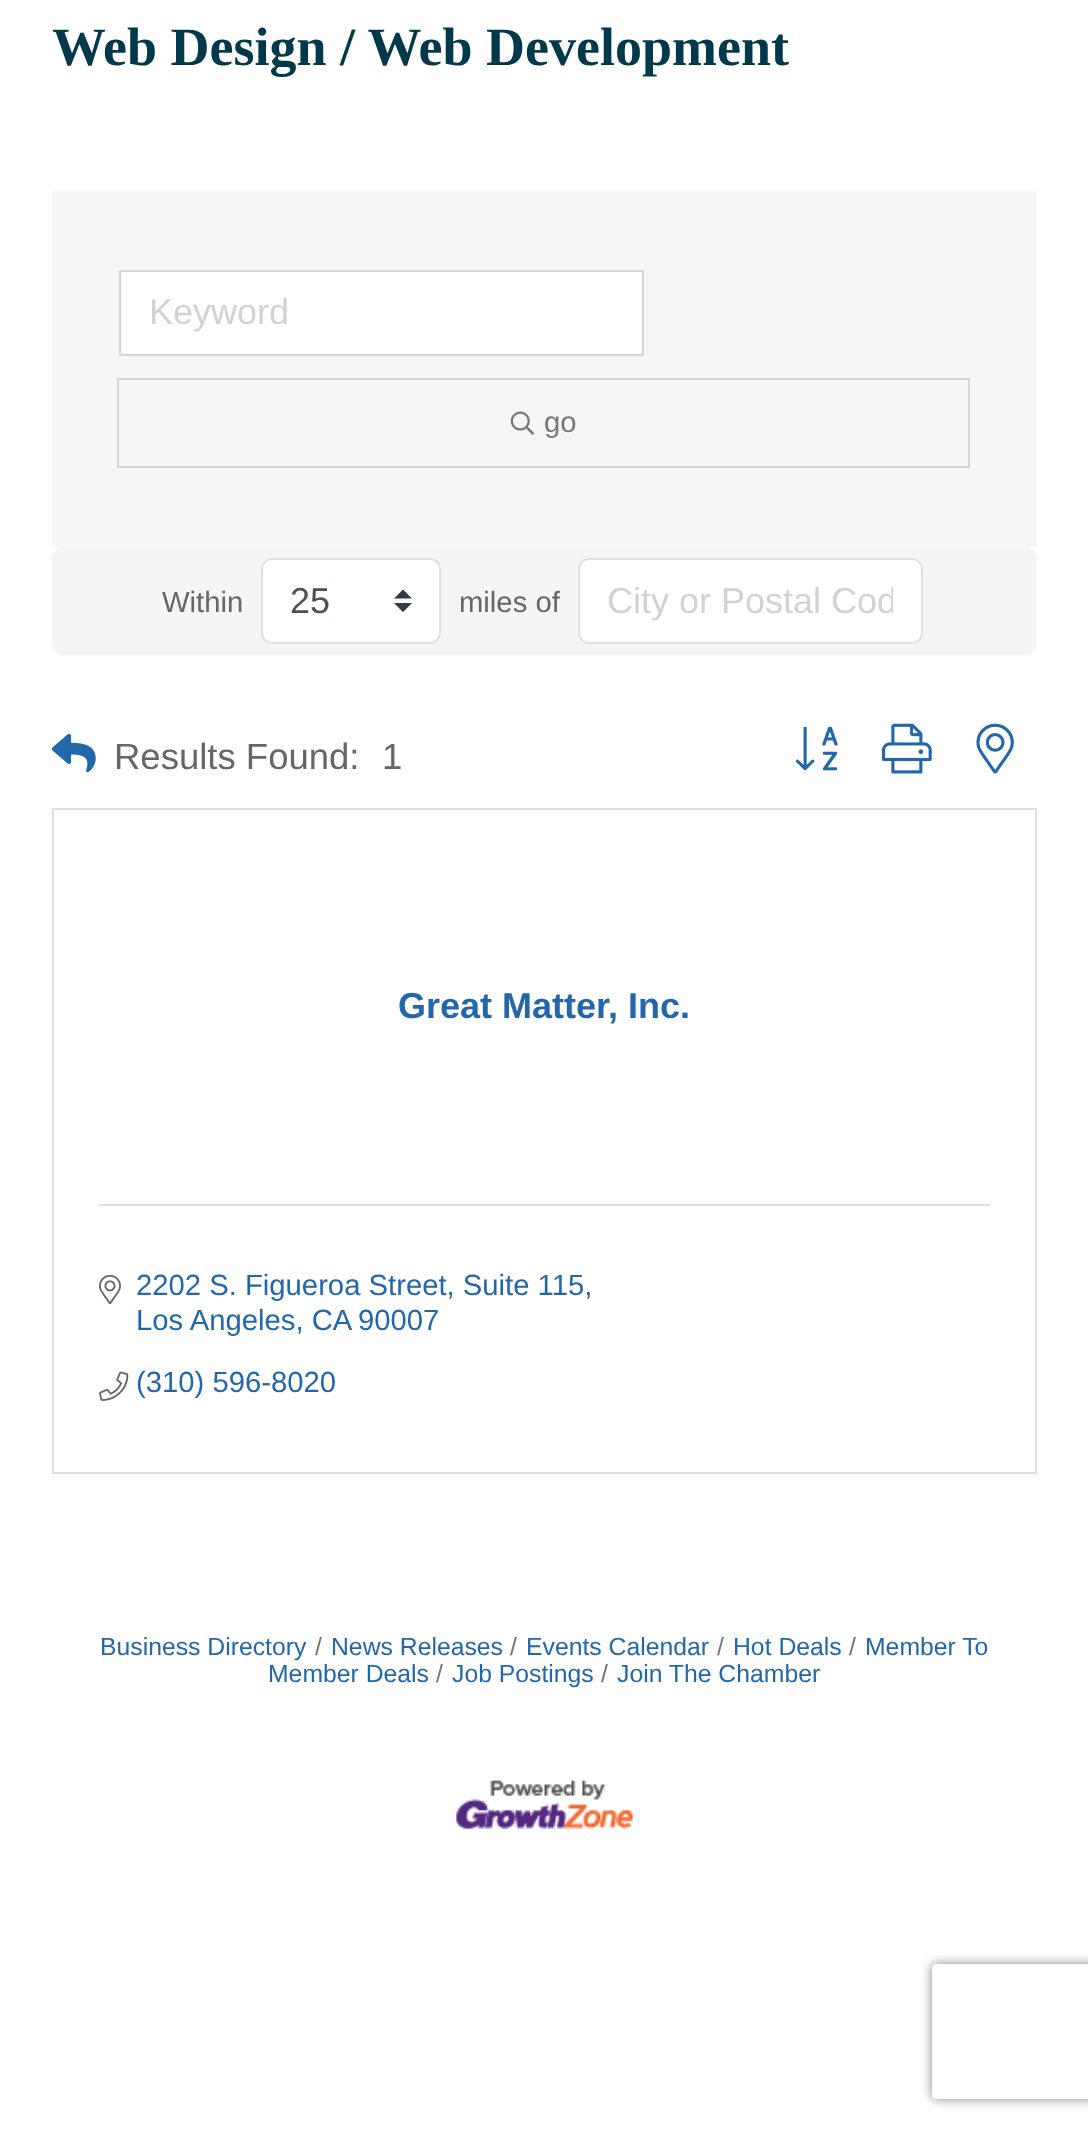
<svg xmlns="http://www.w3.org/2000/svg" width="1088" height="2130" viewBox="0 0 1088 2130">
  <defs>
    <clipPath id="clip1"><rect x="608" y="581" width="285" height="40"/></clipPath>
    <clipPath id="clip2"><path d="M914 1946H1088V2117H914ZM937 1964H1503C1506 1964 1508 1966 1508 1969V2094C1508 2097 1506 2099 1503 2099H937C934 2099 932 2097 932 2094V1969C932 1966 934 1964 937 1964Z" clip-rule="evenodd"/></clipPath>
  </defs>
  <rect width="100%" height="100%" fill="rgb(255,255,255)"/>
  <text x="52" y="65" font-family="Liberation Serif" font-size="54" font-weight="bold" fill="rgb(0,57,76)">Web Design / Web Development</text>
  <rect x="52" y="191" width="985" height="356" fill="rgb(246,246,246)"/>
  <rect x="122" y="272" width="519" height="81" fill="rgb(255,255,255)"/>
  <rect x="120" y="271" width="523" height="84" fill="none" stroke="rgb(215,215,215)" stroke-width="2"/>
  <text x="149" y="324" font-family="Liberation Sans" font-size="36" fill="rgb(210,210,210)">Keyword</text>
  <rect x="118" y="379" width="851" height="88" fill="none" stroke="rgb(214,214,214)" stroke-width="2"/>
  <image x="510" y="411" width="25" height="24" href="pic1.png"/>
  <text x="544" y="432" font-family="Liberation Sans" font-size="29.25" fill="rgb(119,119,119)">go</text>
  <rect x="52" y="547" width="985" height="108" rx="11" fill="rgb(245,245,245)"/>
  <text x="162" y="612" font-family="Liberation Sans" font-size="29.25" fill="rgb(102,102,102)">Within</text>
  <rect x="261" y="558" width="180" height="86" rx="11" fill="rgb(255,255,255)"/>
  <path d="M403 589.5L394 598.5H412ZM403 612L394 603H412Z" fill="rgb(52,58,64)"/>
  <rect x="262" y="559" width="178" height="84" rx="10" fill="none" stroke="rgba(0,0,0,0.12)" stroke-width="2"/>
  <text x="290" y="613" font-family="Liberation Sans" font-size="36" fill="rgb(73,80,87)">25</text>
  <text x="459" y="612" font-family="Liberation Sans" font-size="29.25" fill="rgb(102,102,102)">miles of</text>
  <rect x="578" y="558" width="345" height="86" rx="11" fill="rgb(255,255,255)"/>
  <rect x="579" y="559" width="343" height="84" rx="10" fill="none" stroke="rgba(0,0,0,0.12)" stroke-width="2"/>
  <g clip-path="url(#clip1)">
    <text x="607" y="613" font-family="Liberation Sans" font-size="36" fill="rgb(210,210,210)">City or Postal Cod</text>
  </g>
  <image x="51" y="733" width="45" height="40" href="pic2.png"/>
  <g font-family="Liberation Sans" font-size="36.5" fill="rgb(102,102,102)">
    <text x="114" y="769">Results Found:</text>
    <text x="382" y="769">1</text>
  </g>
  <image x="795" y="726" width="43" height="45" href="pic3.png"/>
  <image x="882" y="723" width="50" height="51" href="pic4.png"/>
  <image x="976" y="723" width="38" height="51" href="pic5.png"/>
  <rect x="53" y="809" width="983" height="664" fill="none" stroke="rgb(223,223,223)" stroke-width="2"/>
  <text x="398" y="1018" font-family="Liberation Sans" font-size="36" font-weight="bold" fill="rgb(35,103,171)">Great Matter, Inc.</text>
  <rect x="99" y="1204" width="891" height="2" fill="rgb(223,223,223)"/>
  <image x="99" y="1274" width="22" height="31" href="pic6.png"/>
  <g font-family="Liberation Sans" font-size="29.25" fill="rgb(35,103,171)">
    <text>
      <tspan x="136" y="1295">2202 S. Figueroa Street, Suite 115,</tspan>
      <tspan x="136" y="1330">Los Angeles, CA</tspan>
    </text>
    <text x="358" y="1330">90007</text>
  </g>
  <image x="99" y="1371" width="30" height="30" href="pic7.png"/>
  <text x="136" y="1392" font-family="Liberation Sans" font-size="29.25" fill="rgb(35,103,171)">(310) 596-8020</text>
  <text x="100" y="1655" font-family="Liberation Sans" font-size="24.75" fill="rgb(35,103,171)">Business Directory</text>
  <text x="849" y="1655" font-family="Liberation Sans" font-size="24.75" fill="rgb(108,117,125)">/</text>
  <g font-family="Liberation Sans" font-size="24.75" fill="rgb(35,103,171)">
    <text x="865" y="1655">Member To</text>
    <text x="268" y="1682">Member Deals</text>
  </g>
  <text x="315" y="1655" font-family="Liberation Sans" font-size="24.75" fill="rgb(108,117,125)">/</text>
  <text x="331" y="1655" font-family="Liberation Sans" font-size="24.75" fill="rgb(35,103,171)">News Releases</text>
  <text x="510" y="1655" font-family="Liberation Sans" font-size="24.75" fill="rgb(108,117,125)">/</text>
  <text x="526" y="1655" font-family="Liberation Sans" font-size="24.75" fill="rgb(35,103,171)">Events Calendar</text>
  <text x="717" y="1655" font-family="Liberation Sans" font-size="24.75" fill="rgb(108,117,125)">/</text>
  <text x="733" y="1655" font-family="Liberation Sans" font-size="24.75" fill="rgb(35,103,171)">Hot Deals</text>
  <text x="436" y="1682" font-family="Liberation Sans" font-size="24.75" fill="rgb(108,117,125)">/</text>
  <text x="452" y="1682" font-family="Liberation Sans" font-size="24.75" fill="rgb(35,103,171)">Job Postings</text>
  <text x="601" y="1682" font-family="Liberation Sans" font-size="24.75" fill="rgb(108,117,125)">/</text>
  <text x="617" y="1682" font-family="Liberation Sans" font-size="24.75" fill="rgb(35,103,171)">Join The Chamber</text>
  <image x="456" y="1780" width="178" height="50" href="pic8.png"/>
  <g clip-path="url(#clip2)">
    <rect x="932" y="1964" width="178" height="135" rx="5" fill="rgb(128,128,128)" filter="blur(5.5px)"/>
  </g>
</svg>
